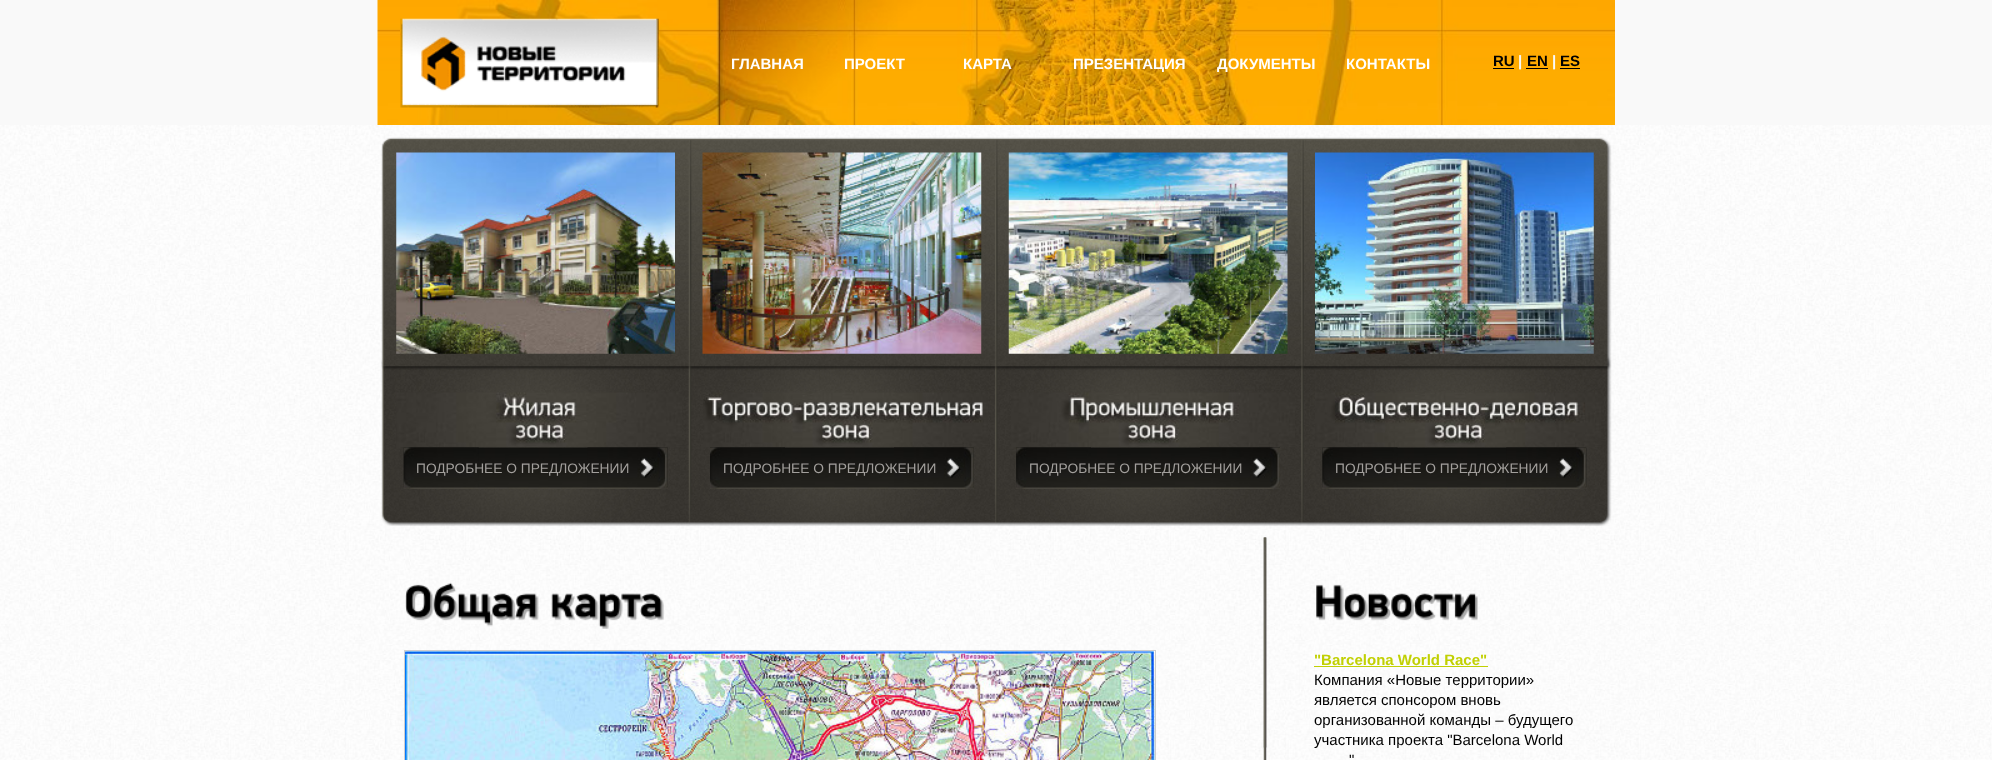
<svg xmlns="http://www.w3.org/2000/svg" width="1992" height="760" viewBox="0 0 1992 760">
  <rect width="100%" height="100%" fill="rgb(249,249,249)"/>
  <image x="377" y="0" width="1238" height="125" href="pic1.png"/>
  <image x="400" y="18" width="259" height="90" href="pic2.png"/>
  <g font-family="Liberation Sans" font-size="15" font-weight="bold" fill="rgb(255,255,255)">
    <text x="731" y="69">ГЛАВНАЯ</text>
    <text x="844" y="69">ПРОЕКТ</text>
    <text x="963" y="69">КАРТА</text>
    <text x="1073" y="69">ПРЕЗЕНТАЦИЯ</text>
    <text x="1217" y="69">ДОКУМЕНТЫ</text>
    <text x="1346" y="69">КОНТАКТЫ</text>
  </g>
  <text x="1493" y="66" font-family="Liberation Sans" font-size="15" font-weight="bold" fill="rgb(0,0,0)">RU</text>
  <rect x="1493" y="68" width="21" height="1" fill="rgb(0,0,0)"/>
  <text x="1518" y="66" font-family="Liberation Sans" font-size="15" font-weight="bold" fill="rgb(249,249,249)">|</text>
  <text x="1527" y="66" font-family="Liberation Sans" font-size="15" font-weight="bold" fill="rgb(0,0,0)">EN</text>
  <rect x="1526" y="68" width="22" height="1" fill="rgb(0,0,0)"/>
  <text x="1552" y="66" font-family="Liberation Sans" font-size="15" font-weight="bold" fill="rgb(249,249,249)">|</text>
  <text x="1560" y="66" font-family="Liberation Sans" font-size="15" font-weight="bold" fill="rgb(0,0,0)">ES</text>
  <rect x="1560" y="68" width="20" height="1" fill="rgb(0,0,0)"/>
  <image x="0" y="125" width="1992" height="635" href="pic3.png"/>
  <image x="381" y="137" width="1231" height="389" href="pic4.png"/>
  <image x="396" y="152" width="279" height="202" href="pic5.png"/>
  <image x="396" y="392" width="286" height="55" href="pic6.png"/>
  <image x="403" y="447" width="265" height="42" href="pic7.png"/>
  <image x="403" y="447" width="76" height="42" href="pic8.png"/>
  <image x="587" y="447" width="81" height="42" href="pic9.png"/>
  <text x="416" y="473" font-family="Liberation Sans" font-size="13.75" fill="rgb(162,159,156)">ПОДРОБНЕЕ О ПРЕДЛОЖЕНИИ</text>
  <image x="702" y="152" width="280" height="202" href="pic10.png"/>
  <image x="703" y="392" width="285" height="55" href="pic11.png"/>
  <image x="710" y="447" width="264" height="42" href="pic12.png"/>
  <image x="710" y="447" width="75" height="42" href="pic13.png"/>
  <image x="894" y="447" width="80" height="42" href="pic14.png"/>
  <text x="723" y="473" font-family="Liberation Sans" font-size="13.75" fill="rgb(162,159,156)">ПОДРОБНЕЕ О ПРЕДЛОЖЕНИИ</text>
  <image x="1008" y="152" width="280" height="202" href="pic15.png"/>
  <image x="1011" y="392" width="284" height="55" href="pic16.png"/>
  <image x="1016" y="447" width="264" height="42" href="pic17.png"/>
  <image x="1016" y="447" width="75" height="42" href="pic18.png"/>
  <image x="1200" y="447" width="80" height="42" href="pic19.png"/>
  <text x="1029" y="473" font-family="Liberation Sans" font-size="13.75" fill="rgb(162,159,156)">ПОДРОБНЕЕ О ПРЕДЛОЖЕНИИ</text>
  <image x="1315" y="152" width="279" height="202" href="pic20.png"/>
  <image x="1315" y="392" width="286" height="55" href="pic21.png"/>
  <image x="1322" y="447" width="265" height="42" href="pic22.png"/>
  <image x="1322" y="447" width="76" height="42" href="pic23.png"/>
  <image x="1506" y="447" width="80" height="42" href="pic24.png"/>
  <text x="1335" y="473" font-family="Liberation Sans" font-size="13.75" fill="rgb(162,159,156)">ПОДРОБНЕЕ О ПРЕДЛОЖЕНИИ</text>
  <image x="1263" y="537" width="4" height="223" href="pic25.png"/>
  <image x="1263" y="537" width="4" height="211" href="pic26.png"/>
  <image x="405" y="582" width="134" height="45" href="pic27.png"/>
  <image x="551" y="593" width="113" height="36" href="pic28.png"/>
  <rect x="405" y="651" width="750" height="1" fill="rgb(255,255,255)"/>
  <rect x="404.5" y="650.5" width="751" height="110" fill="none" stroke="rgb(206,206,206)"/>
  <image x="405" y="651" width="750" height="109" href="pic29.png"/>
  <image x="1316" y="584" width="162" height="37" href="pic30.png"/>
  <text x="1314" y="665" font-family="Liberation Sans" font-size="15" font-weight="bold" fill="rgb(193,208,3)">"Barcelona World Race"</text>
  <rect x="1314" y="666" width="174" height="1" fill="rgb(193,208,3)"/>
  <g font-family="Liberation Sans" font-size="15" fill="rgb(0,0,0)">
    <text>
      <tspan x="1314" y="685">Компания «Новые территории»</tspan>
      <tspan x="1314" y="705">является спонсором вновь</tspan>
      <tspan x="1314" y="725">организованной команды – будущего</tspan>
      <tspan x="1314" y="745">участника проекта "Barcelona World</tspan>
    </text>
    <text x="1349" y="765">"</text>
  </g>
</svg>
